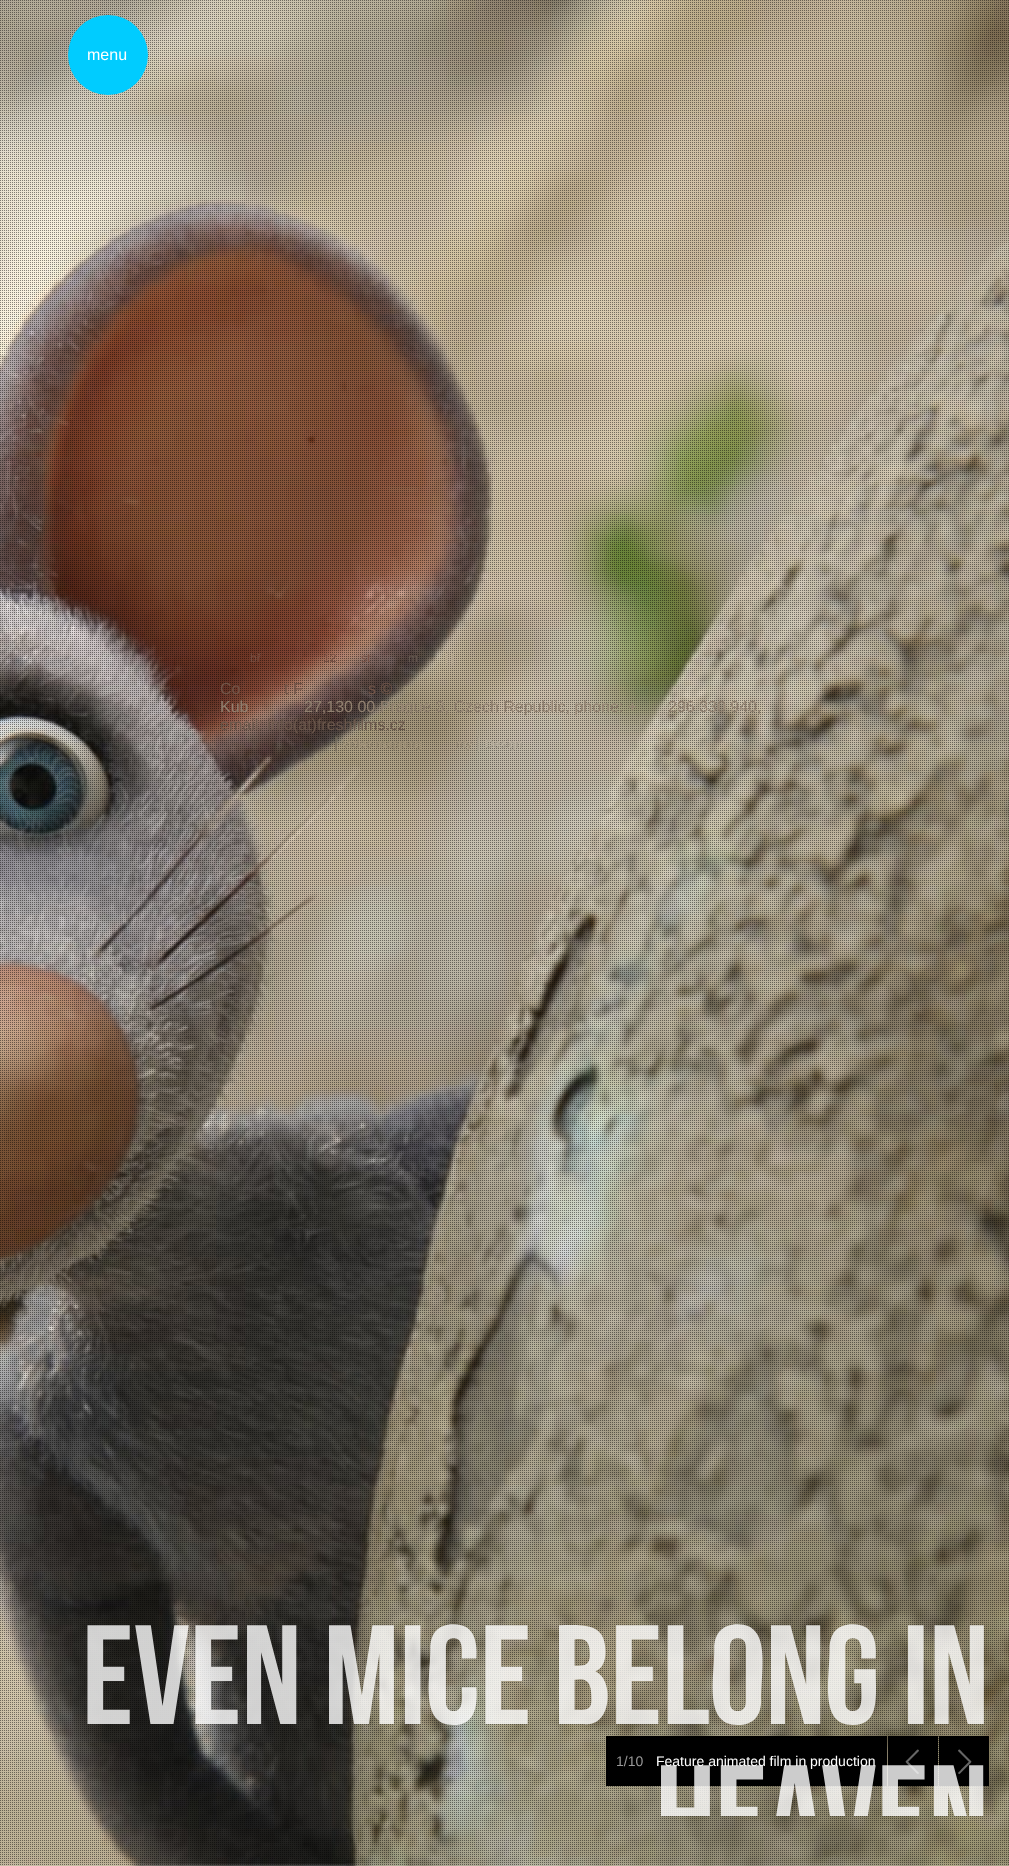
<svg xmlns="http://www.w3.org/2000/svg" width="1009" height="1866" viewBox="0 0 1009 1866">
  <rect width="100%" height="100%" fill="rgb(255,255,255)"/>
  <image x="0" y="0" width="1009" height="1866" href="pic1.png"/>
  <image x="0" y="0" width="1009" height="1865" href="pic2.png"/>
  <circle cx="108" cy="55" r="40" fill="rgb(0,204,255)"/>
  <text x="87" y="60" font-family="Liberation Sans" font-size="16" fill="rgb(255,255,255)">menu</text>
  <g font-family="Liberation Sans" font-size="12" fill="rgb(120,80,67)">
    <text x="250" y="662">bř</text>
    <text x="323" y="662">12</text>
    <text x="361" y="662">st</text>
  </g>
  <text x="408" y="662" font-family="Liberation Sans" font-size="12" fill="rgb(101,90,81)">m</text>
  <g font-family="Liberation Sans" font-size="12" fill="rgb(171,158,135)">
    <text x="445" y="662">|</text>
    <text x="451" y="662">|</text>
  </g>
  <g font-family="Liberation Sans" font-size="16" fill="rgb(115,86,73)">
    <text x="220" y="694">Co</text>
    <text x="284" y="694">t F</text>
    <text x="368" y="694">s ©</text>
  </g>
  <g font-family="Liberation Sans" font-size="16" fill="rgb(145,129,112)">
    <text x="220" y="712">Kub</text>
    <text x="304" y="712">27,130 00 Prague 3, Czech Republic, phone: +</text>
    <text x="668" y="712">296 330 940,</text>
  </g>
  <text x="220" y="730" font-family="Liberation Sans" font-size="16" fill="rgb(107,88,76)">email: info(at)freshfilms.cz</text>
  <text x="334" y="748" font-family="Liberation Sans" font-size="16" fill="rgb(117,108,92)">|</text>
  <text x="342" y="748" font-family="Liberation Sans" font-size="12" fill="rgb(151,138,114)">Video mapping</text>
  <text x="456" y="748" font-family="Liberation Sans" font-size="12" fill="rgb(157,144,123)">nty</text>
  <text x="476" y="748" font-family="Liberation Sans" font-size="16" fill="rgb(163,155,137)">|</text>
  <text x="485" y="748" font-family="Liberation Sans" font-size="12" fill="rgb(171,163,147)">Design</text>
  <image x="87" y="1625" width="210" height="99" href="pic3.png"/>
  <image x="329" y="1624" width="199" height="101" href="pic4.png"/>
  <image x="559" y="1624" width="317" height="101" href="pic5.png"/>
  <image x="908" y="1625" width="76" height="99" href="pic6.png"/>
  <rect x="606" y="1736" width="281" height="50" fill="rgb(0,0,0)"/>
  <text x="656" y="1766" font-family="Liberation Sans" font-size="14" fill="rgb(255,255,255)">Feature animated film in production</text>
  <image x="888" y="1736" width="50" height="50" href="pic8.png"/>
  <image x="939" y="1736" width="50" height="50" href="pic9.png"/>
  <image x="661" y="1765" width="323" height="51" href="pic7.png"/>
  <text x="616" y="1766" font-family="Liberation Sans" font-size="14" fill="rgb(153,153,153)">1/10</text>
</svg>
